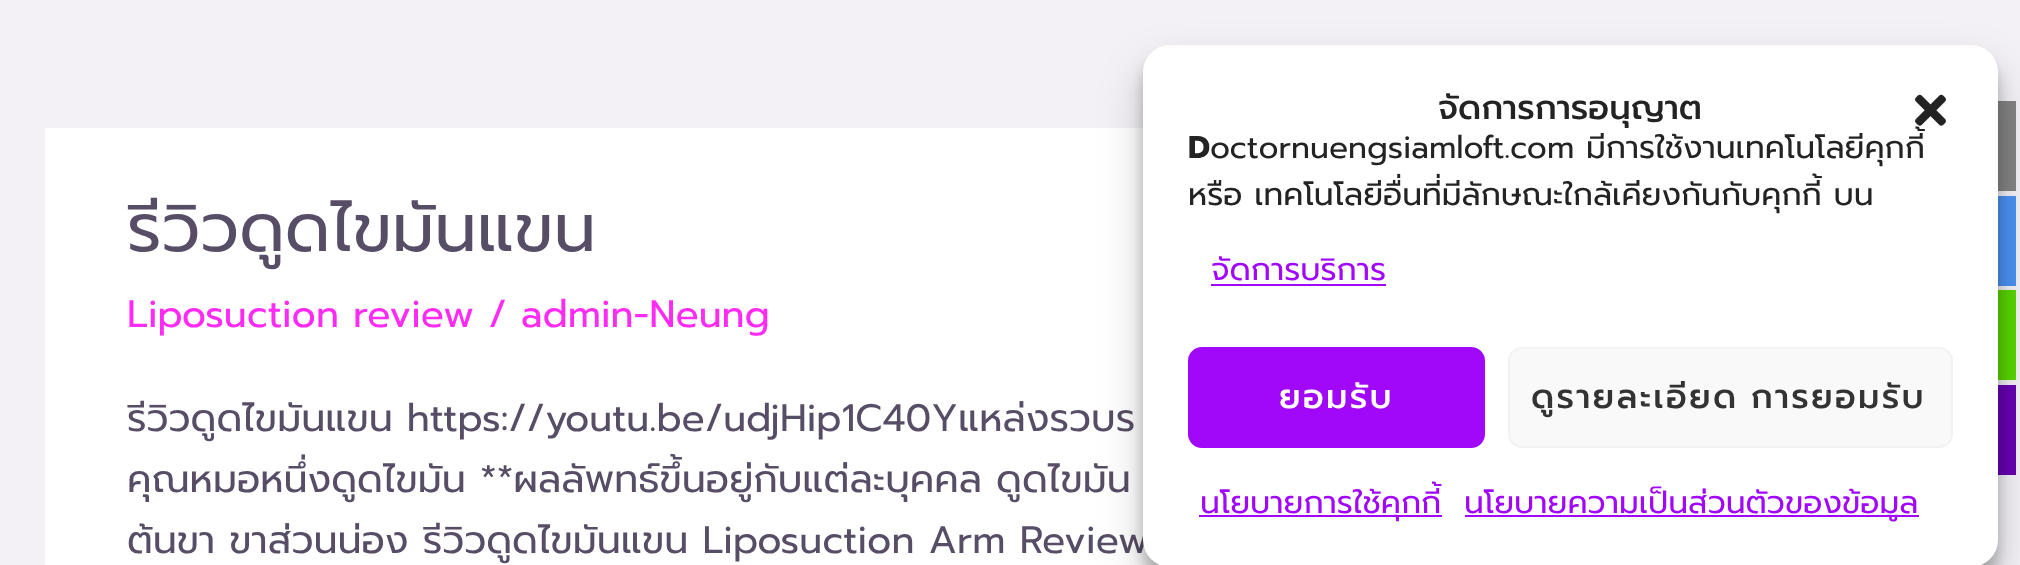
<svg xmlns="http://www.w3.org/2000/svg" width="2020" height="565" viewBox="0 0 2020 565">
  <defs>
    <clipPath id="clip1"><rect x="126" y="187" width="1769" height="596"/></clipPath>
  </defs>
  <rect width="100%" height="100%" fill="rgb(243,241,246)"/>
  <rect x="45" y="128" width="1115" height="437" fill="rgb(255,255,255)"/>
  <g clip-path="url(#clip1)">
    <text x="127" y="251" font-family="Prompt" font-size="67.5" fill="rgb(88,77,102)">รีวิวดูดไขมันแขน</text>
  </g>
  <text x="127" y="327" font-family="Prompt" font-size="38.25" fill="rgb(255,42,244)">Liposuction review / admin-Neung</text>
  <g clip-path="url(#clip1)">
    <g font-family="Prompt" font-size="38.25" fill="rgb(88,77,102)">
      <text>
        <tspan x="127" y="431">รีวิวดูดไขมันแขน https://youtu.be/udjHip1C40Yแหล่งรวบร</tspan>
        <tspan x="127" y="492">คุณหมอหนึ่งดูดไขมัน **ผลลัพทธ์ขึ้นอยู่กับแต่ละบุคคล ดูดไขมัน</tspan>
        <tspan x="127" y="553">ต้นขา ขาส่วนน่อง รีวิวดูดไขมันแขน Liposuction Arm Review</tspan>
      </text>
    </g>
  </g>
  <rect x="1998" y="101" width="18" height="90" fill="rgb(132,132,132)"/>
  <rect x="1998" y="196" width="18" height="90" fill="rgb(75,146,244)"/>
  <rect x="1998" y="290" width="18" height="90" fill="rgb(89,214,0)"/>
  <rect x="1998" y="385" width="18" height="90" fill="rgb(104,0,178)"/>
  <rect x="1143" y="59" width="855" height="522" rx="27" fill="rgba(0,0,0,0.23)" filter="blur(7px)"/>
  <rect x="1143" y="68" width="855" height="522" rx="27" fill="rgba(0,0,0,0.19)" filter="blur(22.5px)"/>
  <rect x="1143" y="45" width="855" height="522" rx="27" fill="rgb(255,255,255)"/>
  <text x="1438" y="119" font-family="Prompt" font-size="33.75" font-weight="500" fill="rgb(35,35,35)">จัดการการอนุญาต</text>
  <image x="1915" y="94" width="31" height="32" href="pic1.png"/>
  <text x="1188" y="158" font-family="Prompt" font-size="31.5" font-weight="bold" fill="rgb(35,35,35)">D</text>
  <g font-family="Prompt" font-size="31.5" fill="rgb(35,35,35)">
    <text x="1210" y="158">octornuengsiamloft.com มีการใช้งานเทคโนโลยีคุกกี้</text>
    <text x="1188" y="205">หรือ เทคโนโลยีอื่นที่มีลักษณะใกล้เคียงกันกับคุกกี้ บน</text>
  </g>
  <text x="1211" y="280" font-family="Prompt" font-size="31.5" fill="rgb(161,7,249)">จัดการบริการ</text>
  <rect x="1211" y="284" width="175" height="2" fill="rgb(161,7,249)"/>
  <rect x="1189" y="348" width="295" height="99" rx="13" fill="rgb(161,7,249)" stroke="rgb(161,7,249)" stroke-width="2"/>
  <text x="1279" y="408" font-family="Prompt" font-size="33.75" font-weight="500" letter-spacing="2.25" fill="rgb(255,255,255)">ยอมรับ</text>
  <rect x="1509" y="348" width="443" height="99" rx="13" fill="rgb(249,249,249)" stroke="rgb(242,242,242)" stroke-width="2"/>
  <text x="1531" y="408" word-spacing="-2" font-family="Prompt" font-size="33.75" font-weight="500" letter-spacing="2.25" fill="rgb(51,51,51)">ดูรายละเอียด การยอมรับ</text>
  <rect x="1199" y="515" width="243" height="2" fill="rgb(161,7,249)"/>
  <text x="1200" y="513" font-family="Prompt" font-size="31.5" fill="rgb(161,7,249)">นโยบายการใช้คุกกี้</text>
  <rect x="1465" y="515" width="454" height="2" fill="rgb(161,7,249)"/>
  <text x="1464" y="513" font-family="Prompt" font-size="31.5" fill="rgb(161,7,249)">นโยบายความเป็นส่วนตัวของข้อมูล</text>
</svg>
